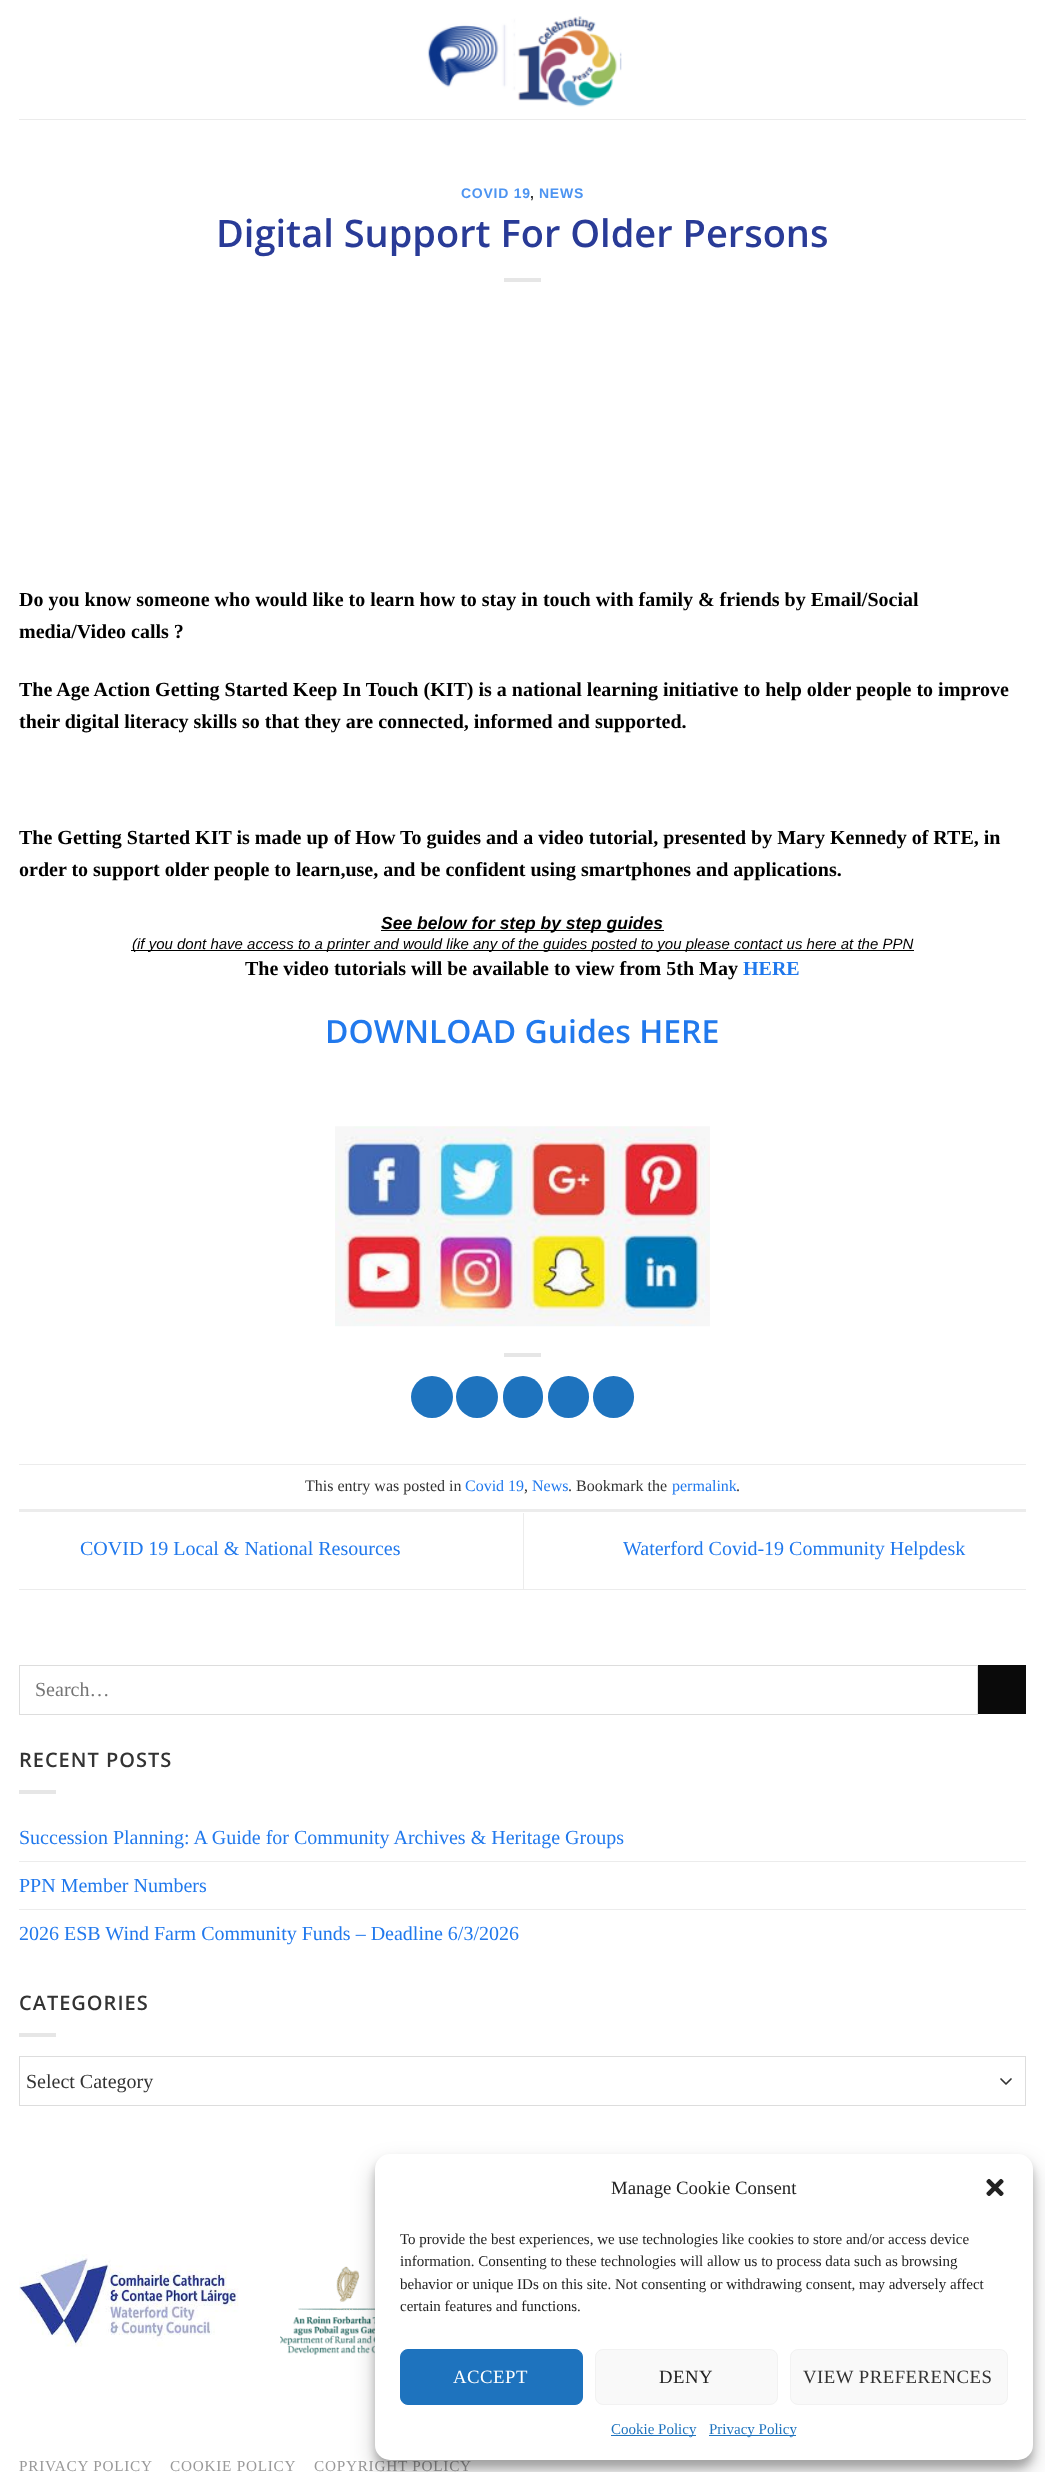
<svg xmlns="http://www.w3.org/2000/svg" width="1045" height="2472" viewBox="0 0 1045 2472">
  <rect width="100%" height="100%" fill="rgb(255,255,255)"/>
  <image x="427" y="16" width="195" height="91" href="pic1.png"/>
  <rect x="19" y="119" width="1007" height="1" fill="rgb(235,235,235)"/>
  <text x="461" y="198" font-family="Liberation Sans" font-size="14" font-weight="bold" letter-spacing="0.75" fill="rgb(77,148,241)">COVID 19</text>
  <text x="530" y="198" font-family="Liberation Sans" font-size="14" font-weight="bold" letter-spacing="0.75" fill="rgb(51,51,51)">,</text>
  <text x="539" y="198" font-family="Liberation Sans" font-size="14" font-weight="bold" letter-spacing="0.75" fill="rgb(77,148,241)">NEWS</text>
  <text x="216" y="247" font-family="Open Sans" font-size="38" font-weight="600" fill="rgb(41,59,151)">Digital Support For Older Persons</text>
  <rect x="504" y="278" width="37" height="4" fill="rgb(230,230,230)"/>
  <g font-family="Liberation Serif" font-size="20" font-weight="bold" fill="rgb(0,0,0)">
    <text>
      <tspan x="19" y="606">Do you know someone who would like to learn how to stay in touch with family &amp; friends by Email/Social</tspan>
      <tspan x="19" y="638">media/Video calls ?</tspan>
    </text>
    <text>
      <tspan x="19" y="696">The Age Action Getting Started Keep In Touch (KIT) is a national learning initiative to help older people to improve</tspan>
      <tspan x="19" y="728">their digital literacy skills so that they are connected, informed and supported.</tspan>
    </text>
    <text>
      <tspan x="19" y="844">The Getting Started KIT is made up of How To guides and a video tutorial, presented by Mary Kennedy of RTE, in</tspan>
      <tspan x="19" y="876">order to support older people to learn,use, and be confident using smartphones and applications.</tspan>
    </text>
  </g>
  <rect x="381" y="930" width="283" height="1" fill="rgb(0,0,0)"/>
  <text x="381" y="929" font-family="Liberation Sans" font-size="17.5" font-weight="bold" font-style="italic" fill="rgb(0,0,0)">See below for step by step guides</text>
  <rect x="131" y="950" width="783" height="1" fill="rgb(0,0,0)"/>
  <text x="132" y="949" font-family="Liberation Sans" font-size="15" font-style="italic" fill="rgb(0,0,0)">(if you dont have access to a printer and would like any of the guides posted to you please contact us here at the PPN</text>
  <text x="245" y="975" font-family="Liberation Serif" font-size="20" font-weight="bold" fill="rgb(0,0,0)">The video tutorials will be available to view from 5th May</text>
  <text x="743" y="975" font-family="Liberation Serif" font-size="20" font-weight="bold" fill="rgb(33,121,237)">HERE</text>
  <text x="325" y="1043" font-family="Open Sans" font-size="32" font-weight="600" fill="rgb(33,121,237)">DOWNLOAD Guides HERE</text>
  <image x="335" y="1126" width="375" height="201" href="pic2.png"/>
  <rect x="504" y="1353" width="37" height="4" fill="rgb(230,230,230)"/>
  <circle cx="432" cy="1397" r="21" fill="rgb(30,115,190)"/>
  <circle cx="477" cy="1397" r="21" fill="rgb(30,115,190)"/>
  <rect x="503" y="1376" width="40" height="42" rx="20" fill="rgb(30,115,190)"/>
  <rect x="548" y="1376" width="41" height="42" rx="20.5" fill="rgb(30,115,190)"/>
  <rect x="593" y="1376" width="41" height="42" rx="20.5" fill="rgb(30,115,190)"/>
  <rect x="19" y="1464" width="1007" height="1" fill="rgb(236,236,236)"/>
  <rect x="19" y="1509" width="1007" height="3" fill="rgb(236,236,236)"/>
  <text x="305" y="1491" font-family="Liberation Serif" font-size="16" fill="rgb(51,51,51)">This entry was posted in</text>
  <text x="465" y="1491" font-family="Liberation Serif" font-size="16" fill="rgb(33,121,237)">Covid 19</text>
  <text x="524" y="1491" font-family="Liberation Serif" font-size="16" fill="rgb(51,51,51)">,</text>
  <text x="532" y="1491" font-family="Liberation Serif" font-size="16" fill="rgb(33,121,237)">News</text>
  <text x="568" y="1491" font-family="Liberation Serif" font-size="16" fill="rgb(51,51,51)">. Bookmark the</text>
  <text x="672" y="1491" font-family="Liberation Serif" font-size="16" fill="rgb(33,121,237)">permalink</text>
  <text x="736" y="1491" font-family="Liberation Serif" font-size="16" fill="rgb(51,51,51)">.</text>
  <rect x="19" y="1589" width="1007" height="1" fill="rgb(236,236,236)"/>
  <text x="80" y="1555" font-family="Liberation Serif" font-size="20" fill="rgb(33,121,237)">COVID 19 Local &amp; National Resources</text>
  <rect x="523" y="1513" width="1" height="76" fill="rgb(236,236,236)"/>
  <text x="623" y="1555" font-family="Liberation Serif" font-size="20" fill="rgb(33,121,237)">Waterford Covid-19 Community Helpdesk</text>
  <rect x="19.5" y="1665.5" width="958" height="49" fill="none" stroke="rgb(221,221,221)"/>
  <text x="35" y="1696" font-family="Liberation Serif" font-size="20" fill="rgb(117,117,117)">Search…</text>
  <rect x="978" y="1665" width="48" height="49" fill="rgb(10,10,10)"/>
  <text x="19" y="1767" font-family="Open Sans" font-size="20" font-weight="600" letter-spacing="1" fill="rgb(51,51,51)">RECENT POSTS</text>
  <rect x="19" y="1790" width="37" height="4" fill="rgb(230,230,230)"/>
  <text x="19" y="1844" font-family="Liberation Serif" font-size="20" fill="rgb(33,121,237)">Succession Planning: A Guide for Community Archives &amp; Heritage Groups</text>
  <rect x="19" y="1861" width="1007" height="1" fill="rgb(236,236,236)"/>
  <text x="19" y="1892" font-family="Liberation Serif" font-size="20" fill="rgb(33,121,237)">PPN Member Numbers</text>
  <rect x="19" y="1909" width="1007" height="1" fill="rgb(236,236,236)"/>
  <text x="19" y="1940" font-family="Liberation Serif" font-size="20" fill="rgb(33,121,237)">2026 ESB Wind Farm Community Funds – Deadline 6/3/2026</text>
  <text x="19" y="2010" font-family="Open Sans" font-size="20" font-weight="600" letter-spacing="1" fill="rgb(51,51,51)">CATEGORIES</text>
  <rect x="19" y="2033" width="37" height="4" fill="rgb(230,230,230)"/>
  <path d="M1001 2079L1006 2084L1011 2079" fill="none" stroke="rgb(51,51,51)" stroke-width="1.7" stroke-linecap="round" stroke-linejoin="round"/>
  <rect x="19.5" y="2056.5" width="1006" height="49" fill="none" stroke="rgb(221,221,221)"/>
  <text x="26" y="2088" font-family="Liberation Serif" font-size="20" fill="rgb(51,51,51)">Select Category</text>
  <image x="19" y="2254" width="220" height="93" href="pic3.png"/>
  <image x="280" y="2266" width="95" height="89" href="pic4.png"/>
  <g font-family="Liberation Serif" font-size="15.25" letter-spacing="0.75" fill="rgb(153,153,153)">
    <text x="19" y="2471">PRIVACY POLICY</text>
    <text x="170" y="2471">COOKIE POLICY</text>
    <text x="314" y="2471">COPYRIGHT POLICY</text>
  </g>
  <rect x="375" y="2161" width="658" height="307" rx="15" fill="rgba(0,0,0,0.23)" filter="blur(4px)"/>
  <rect x="375" y="2166" width="658" height="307" rx="15" fill="rgba(0,0,0,0.19)" filter="blur(12.5px)"/>
  <rect x="375" y="2154" width="658" height="306" rx="15" fill="rgb(255,255,255)"/>
  <text x="611" y="2194" font-family="Liberation Serif" font-size="18.75" fill="rgb(34,34,34)">Manage Cookie Consent</text>
  <image x="986" y="2178" width="18" height="18" href="pic5.png"/>
  <g font-family="Liberation Serif" font-size="15" fill="rgb(34,34,34)">
    <text>
      <tspan x="400" y="2244">To provide the best experiences, we use technologies like cookies to store and/or access device</tspan>
      <tspan x="400" y="2266">information. Consenting to these technologies will allow us to process data such as browsing</tspan>
      <tspan x="400" y="2289">behavior or unique IDs on this site. Not consenting or withdrawing consent, may adversely affect</tspan>
      <tspan x="400" y="2311">certain features and functions.</tspan>
    </text>
  </g>
  <rect x="400.5" y="2349.5" width="182" height="55" rx="7.5" fill="rgb(30,115,190)" stroke="rgb(30,115,190)"/>
  <text x="453" y="2383" font-family="Liberation Serif" font-size="18.75" letter-spacing="0.5" fill="rgb(255,255,255)">ACCEPT</text>
  <rect x="595.5" y="2349.5" width="182" height="55" rx="7.5" fill="rgb(249,249,249)" stroke="rgb(242,242,242)"/>
  <text x="659" y="2383" font-family="Liberation Serif" font-size="18.75" letter-spacing="0.5" fill="rgb(34,34,34)">DENY</text>
  <rect x="790.5" y="2349.5" width="217" height="55" rx="7.5" fill="rgb(249,249,249)" stroke="rgb(242,242,242)"/>
  <text x="803" y="2383" font-family="Liberation Serif" font-size="18.75" letter-spacing="0.5" fill="rgb(51,51,51)">VIEW PREFERENCES</text>
  <rect x="611" y="2435" width="85" height="1" fill="rgb(30,115,190)"/>
  <text x="611" y="2434" font-family="Liberation Serif" font-size="15" fill="rgb(30,115,190)">Cookie Policy</text>
  <rect x="709" y="2435" width="87" height="1" fill="rgb(30,115,190)"/>
  <text x="709" y="2434" font-family="Liberation Serif" font-size="15" fill="rgb(30,115,190)">Privacy Policy</text>
</svg>
